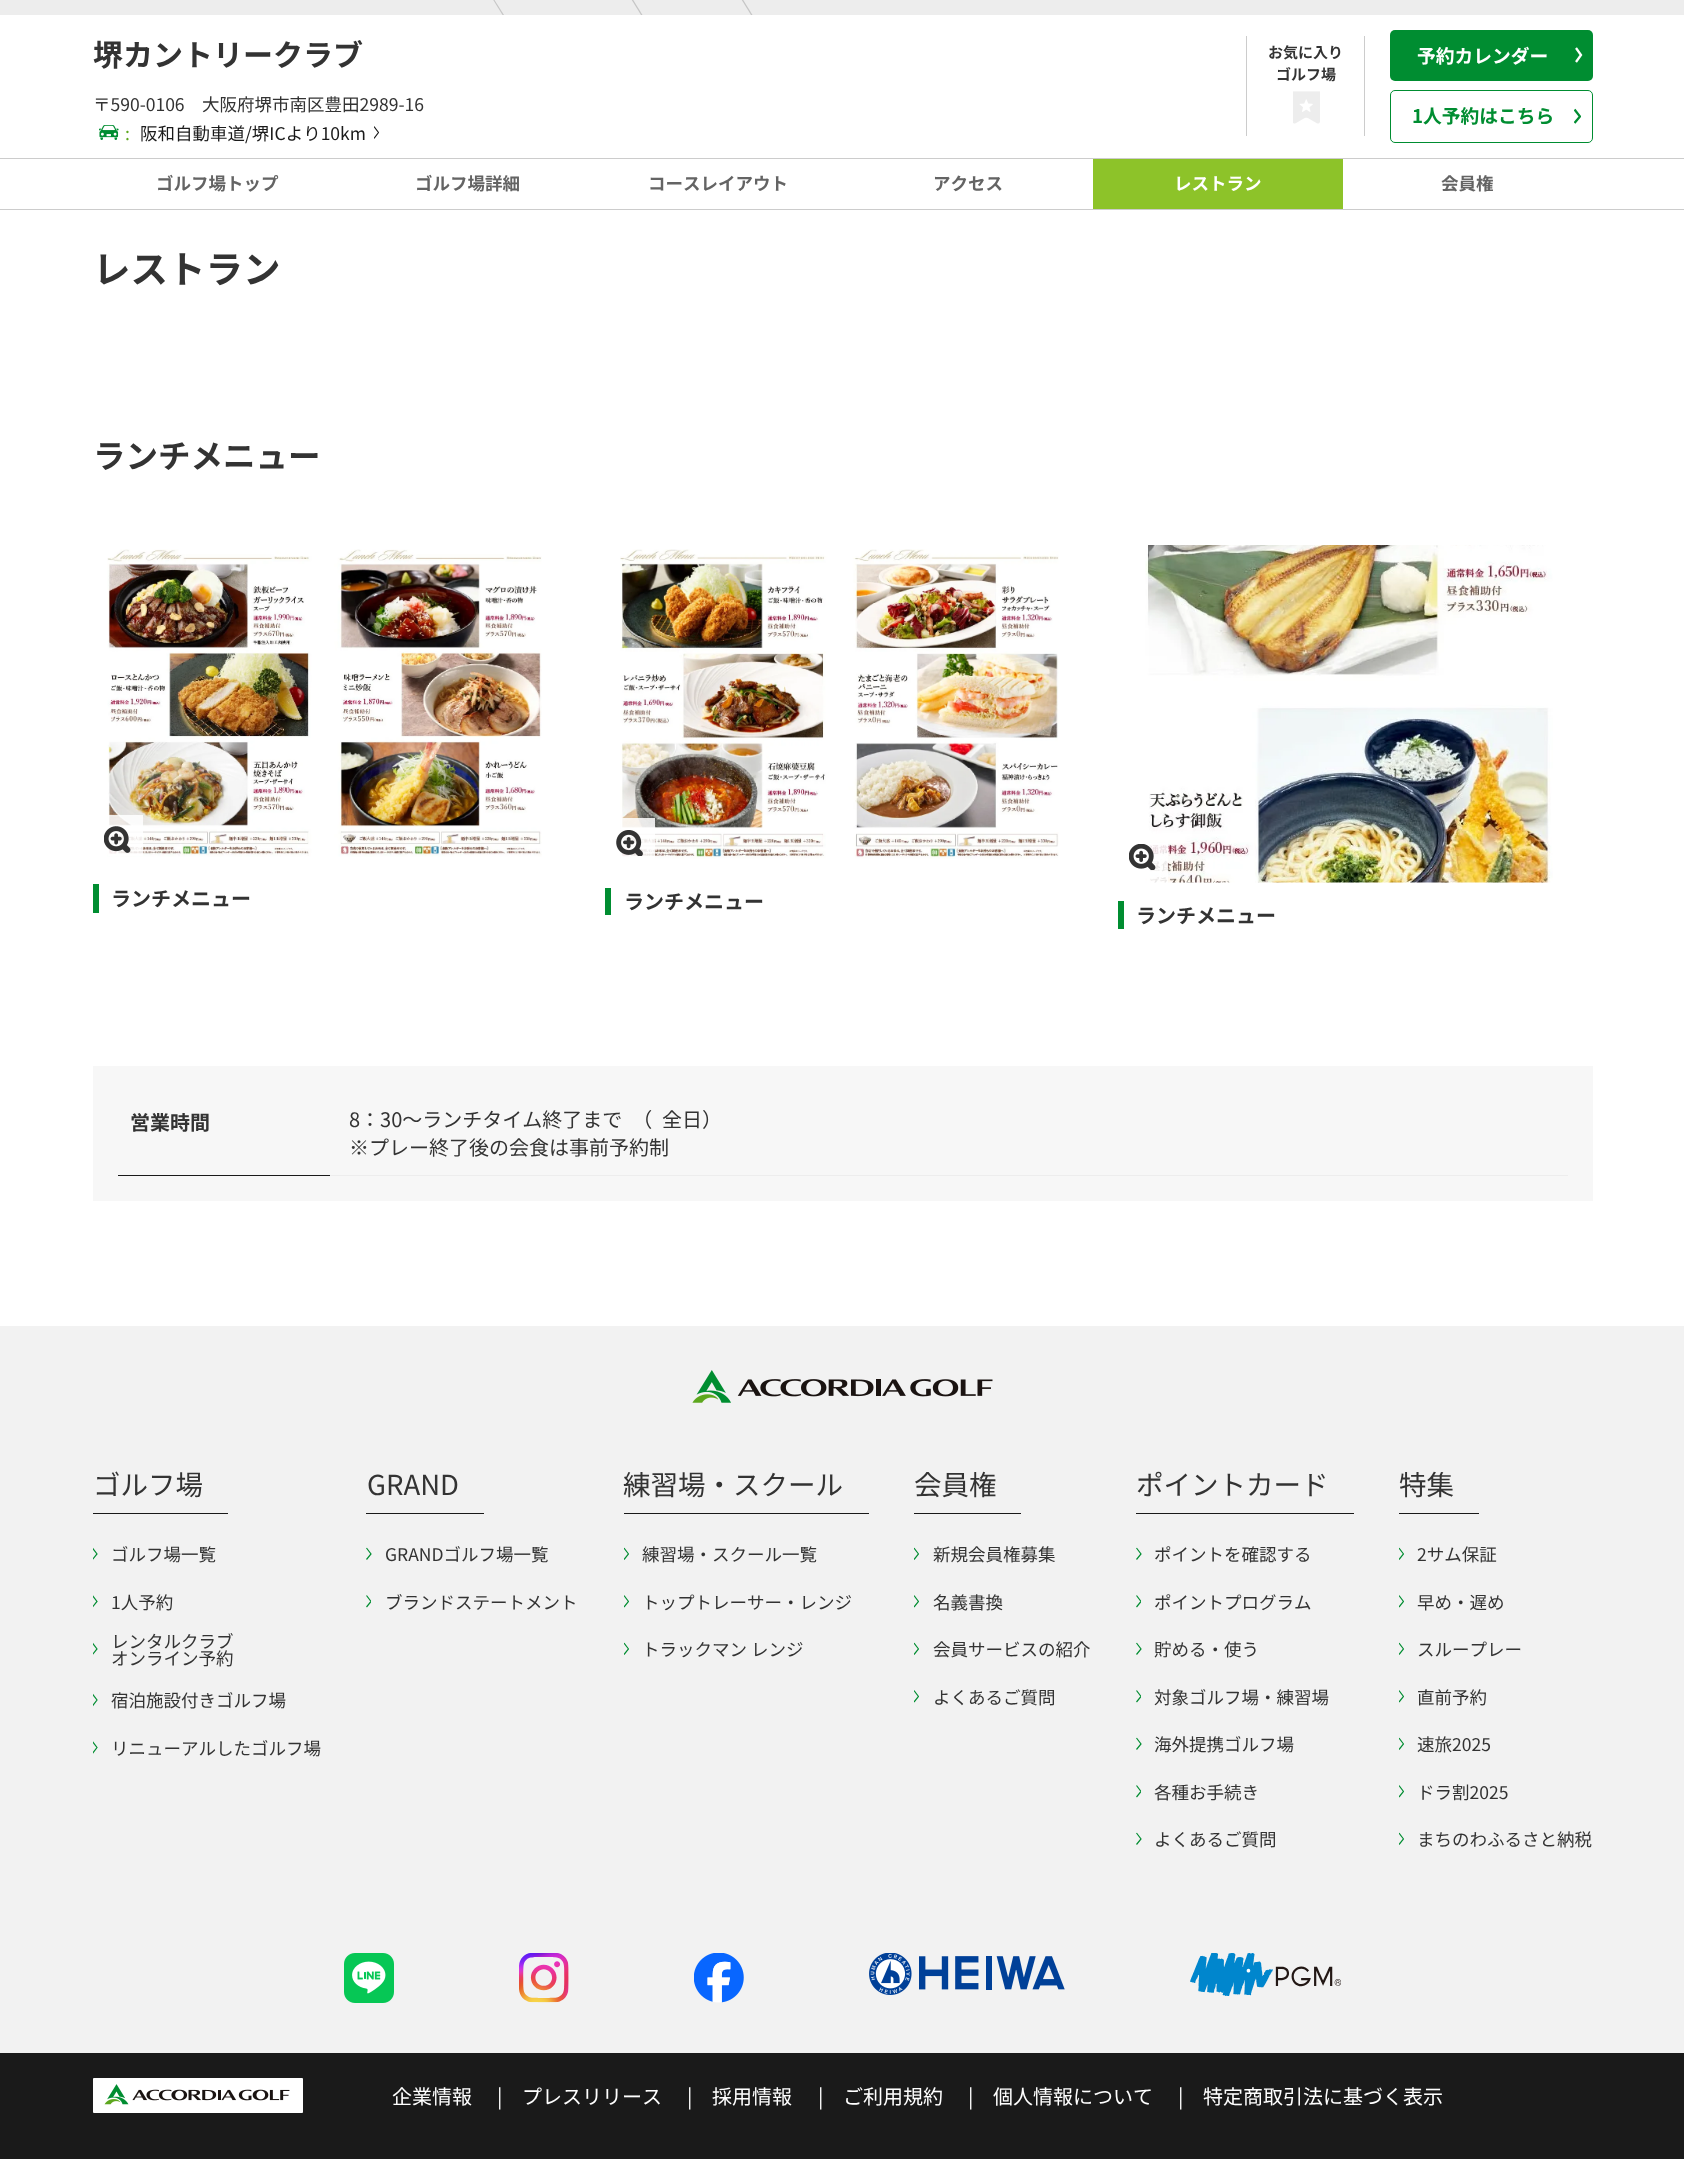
<svg xmlns="http://www.w3.org/2000/svg" width="1684" height="2159" viewBox="0 0 1684 2159">
  <style>*{font-kerning:none!important;font-variant-ligatures:none!important}</style>
  <defs>
    <clipPath id="clip1"><rect x="374" y="125" width="5" height="15"/></clipPath>
    <clipPath id="clip2"><rect x="1574" y="108" width="7" height="17"/></clipPath>
    <clipPath id="clip3"><rect x="93" y="1546" width="5" height="15"/></clipPath>
    <clipPath id="clip4"><rect x="93" y="1594" width="5" height="15"/></clipPath>
    <clipPath id="clip5"><rect x="93" y="1641" width="5" height="15"/></clipPath>
    <clipPath id="clip6"><rect x="93" y="1693" width="5" height="15"/></clipPath>
    <clipPath id="clip7"><rect x="93" y="1740" width="5" height="15"/></clipPath>
    <clipPath id="clip8"><rect x="366" y="1594" width="5" height="15"/></clipPath>
    <clipPath id="clip9"><rect x="624" y="1546" width="5" height="15"/></clipPath>
    <clipPath id="clip10"><rect x="624" y="1594" width="5" height="15"/></clipPath>
    <clipPath id="clip11"><rect x="624" y="1641" width="5" height="15"/></clipPath>
    <clipPath id="clip12"><rect x="914" y="1546" width="5" height="15"/></clipPath>
    <clipPath id="clip13"><rect x="914" y="1594" width="5" height="15"/></clipPath>
    <clipPath id="clip14"><rect x="914" y="1641" width="5" height="15"/></clipPath>
    <clipPath id="clip15"><rect x="914" y="1689" width="5" height="15"/></clipPath>
    <clipPath id="clip16"><rect x="1136" y="1594" width="5" height="15"/></clipPath>
    <clipPath id="clip17"><rect x="1136" y="1689" width="5" height="15"/></clipPath>
    <clipPath id="clip18"><rect x="1136" y="1784" width="5" height="15"/></clipPath>
    <clipPath id="clip19"><rect x="1399" y="1546" width="5" height="15"/></clipPath>
    <clipPath id="clip20"><rect x="1399" y="1594" width="5" height="15"/></clipPath>
    <clipPath id="clip21"><rect x="1399" y="1641" width="5" height="15"/></clipPath>
    <clipPath id="clip22"><rect x="1399" y="1689" width="5" height="15"/></clipPath>
    <clipPath id="clip23"><rect x="1399" y="1736" width="5" height="15"/></clipPath>
    <clipPath id="clip24"><rect x="1399" y="1784" width="5" height="15"/></clipPath>
    <clipPath id="clip25"><rect x="1399" y="1831" width="5" height="15"/></clipPath>
  </defs>
  <rect width="100%" height="100%" fill="rgb(255,255,255)"/>
  <rect x="0" y="0" width="1684" height="15" fill="rgb(237,237,237)"/>
  <path d="M485 15V-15L504 15Z" fill="rgb(198,198,198)"/>
  <path d="M484 15V-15L502.5 15Z" fill="rgb(237,237,237)"/>
  <path d="M624 15V-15L642.5 15Z" fill="rgb(198,198,198)"/>
  <path d="M622.5 15V-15L641 15Z" fill="rgb(237,237,237)"/>
  <path d="M734 15V-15L752.5 15Z" fill="rgb(198,198,198)"/>
  <path d="M732.5 15V-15L751 15Z" fill="rgb(237,237,237)"/>
  <rect x="0" y="158" width="1684" height="1" fill="rgb(204,204,204)"/>
  <text x="93" y="66" font-family="Noto Sans JP" font-size="30" font-weight="bold" fill="rgb(51,51,51)">堺カントリークラブ</text>
  <text x="93" y="111" font-family="Noto Sans JP" font-size="17.5" fill="rgb(51,51,51)">〒590-0106　大阪府堺市南区豊田2989-16</text>
  <image x="99" y="125" width="20" height="15" href="pic1.png"/>
  <text x="125" y="140" font-family="Noto Sans JP" font-size="17.5" fill="rgb(93,167,30)">:</text>
  <text x="140" y="140" font-family="Noto Sans JP" font-size="17.5" fill="rgb(26,26,26)">阪和自動車道/堺ICより10km</text>
  <g clip-path="url(#clip1)">
    <path d="M374 138.5L378.5 132.5L374 126.5" fill="none" stroke="rgb(26,26,26)" stroke-width="1.2"/>
  </g>
  <rect x="1246" y="36" width="1" height="100" fill="rgb(204,204,204)"/>
  <g font-family="Noto Sans JP" font-size="15" font-weight="bold" fill="rgb(51,51,51)">
    <text x="1268" y="58">お気に入り</text>
    <text x="1276" y="80">ゴルフ場</text>
  </g>
  <rect x="1364" y="36" width="1" height="100" fill="rgb(204,204,204)"/>
  <image x="1293" y="91" width="27" height="33" href="pic2.png"/>
  <rect x="1390" y="30" width="203" height="51" rx="5" fill="rgb(0,141,49)"/>
  <text x="1417" y="63" font-family="Noto Sans JP" font-size="18.75" font-weight="bold" fill="rgb(255,255,255)">予約カレンダー</text>
  <path d="M1576 62L1581 55L1576 48" fill="none" stroke="rgb(255,255,255)" stroke-width="2.3"/>
  <rect x="1390.5" y="90.5" width="202" height="52" rx="4.5" fill="none" stroke="rgb(0,141,49)"/>
  <text x="1412" y="123" font-family="Noto Sans JP" font-size="18.75" font-weight="bold" fill="rgb(0,141,49)">1人予約はこちら</text>
  <g clip-path="url(#clip2)">
    <path d="M1574.5 123L1580 116.5L1574.5 109.5" fill="none" stroke="rgb(0,141,49)" stroke-width="2.3"/>
  </g>
  <rect x="0" y="209" width="1684" height="1" fill="rgb(204,204,204)"/>
  <g font-family="Noto Sans JP" font-size="17.5" font-weight="bold" fill="rgb(100,100,100)">
    <text x="156" y="190">ゴルフ場トップ</text>
    <text x="415" y="190">ゴルフ場詳細</text>
    <text x="648" y="190">コースレイアウト</text>
    <text x="933" y="190">アクセス</text>
  </g>
  <rect x="1093" y="159" width="250" height="50" fill="rgb(141,195,41)"/>
  <text x="1174" y="190" font-family="Noto Sans JP" font-size="17.5" font-weight="bold" fill="rgb(255,255,255)">レストラン</text>
  <text x="1441" y="190" font-family="Noto Sans JP" font-size="17.5" font-weight="bold" fill="rgb(100,100,100)">会員権</text>
  <text x="93" y="283" font-family="Noto Sans JP" font-size="37.5" font-weight="bold" fill="rgb(51,51,51)">レストラン</text>
  <text x="93" y="468" font-family="Noto Sans JP" font-size="32.5" font-weight="bold" fill="rgb(51,51,51)">ランチメニュー</text>
  <image x="107" y="549" width="435" height="308" href="pic3.png"/>
  <rect x="108" y="815" width="35" height="41" fill="rgba(255,255,255,0.85)"/>
  <image x="104" y="826" width="27" height="27" href="pic4.png"/>
  <rect x="93" y="884" width="6" height="29" fill="rgb(0,141,49)"/>
  <text x="111" y="906" font-family="Noto Sans JP" font-size="20" font-weight="bold" fill="rgb(51,51,51)">ランチメニュー</text>
  <image x="620" y="549" width="439" height="310" href="pic5.png"/>
  <rect x="621" y="818" width="34" height="41" fill="rgba(255,255,255,0.85)"/>
  <image x="616" y="830" width="27" height="26" href="pic6.png"/>
  <rect x="605" y="888" width="6" height="27" fill="rgb(0,141,49)"/>
  <text x="624" y="909" font-family="Noto Sans JP" font-size="20" font-weight="bold" fill="rgb(51,51,51)">ランチメニュー</text>
  <image x="1145" y="545" width="408" height="338" href="pic7.png"/>
  <rect x="1147" y="843" width="21" height="40" fill="rgba(255,255,255,0.85)"/>
  <image x="1129" y="844" width="27" height="26" href="pic8.png"/>
  <rect x="1118" y="901" width="6" height="28" fill="rgb(0,141,49)"/>
  <text x="1136" y="923" font-family="Noto Sans JP" font-size="20" font-weight="bold" fill="rgb(51,51,51)">ランチメニュー</text>
  <rect x="93" y="1066" width="1500" height="135" fill="rgb(247,247,247)"/>
  <rect x="118" y="1175" width="212" height="1" fill="rgb(26,26,26)"/>
  <text x="130" y="1130" font-family="Noto Sans JP" font-size="20" font-weight="bold" fill="rgb(51,51,51)">営業時間</text>
  <rect x="330" y="1175" width="1238" height="1" fill="rgb(237,237,237)"/>
  <g font-family="Noto Sans JP" font-size="20" fill="rgb(51,51,51)">
    <text x="349" y="1127">8：30～ランチタイム終了まで　（</text>
    <text x="662" y="1127">全日）</text>
    <text x="349" y="1155">※プレー終了後の会食は事前予約制</text>
  </g>
  <rect x="0" y="1326" width="1684" height="727" fill="rgb(242,242,242)"/>
  <image x="692" y="1370" width="301" height="33" href="pic9.png"/>
  <rect x="93" y="1513" width="135" height="1" fill="rgb(26,26,26)"/>
  <text x="93" y="1495" font-family="Noto Sans JP" font-size="27.5" fill="rgb(51,51,51)">ゴルフ場</text>
  <g clip-path="url(#clip3)">
    <path d="M92.5 1559.5L97 1554L92.5 1548" fill="none" stroke="rgb(0,141,49)" stroke-width="1.2"/>
  </g>
  <text x="111" y="1561" font-family="Noto Sans JP" font-size="17.5" fill="rgb(51,51,51)">ゴルフ場一覧</text>
  <g clip-path="url(#clip4)">
    <path d="M92.5 1607L97 1601.5L92.5 1595.5" fill="none" stroke="rgb(0,141,49)" stroke-width="1.2"/>
  </g>
  <text x="111" y="1609" font-family="Noto Sans JP" font-size="17.5" fill="rgb(51,51,51)">1人予約</text>
  <g clip-path="url(#clip5)">
    <path d="M92.5 1654.5L97 1649L92.5 1643" fill="none" stroke="rgb(0,141,49)" stroke-width="1.2"/>
  </g>
  <g font-family="Noto Sans JP" font-size="17.5" fill="rgb(51,51,51)">
    <text>
      <tspan x="111" y="1648">レンタルクラブ</tspan>
      <tspan x="111" y="1665">オンライン予約</tspan>
    </text>
  </g>
  <g clip-path="url(#clip6)">
    <path d="M92.5 1706L97 1700L92.5 1694" fill="none" stroke="rgb(0,141,49)" stroke-width="1.2"/>
  </g>
  <text x="111" y="1707" font-family="Noto Sans JP" font-size="17.5" fill="rgb(51,51,51)">宿泊施設付きゴルフ場</text>
  <g clip-path="url(#clip7)">
    <path d="M92.5 1753.5L97 1747.5L92.5 1741.5" fill="none" stroke="rgb(0,141,49)" stroke-width="1.2"/>
  </g>
  <text x="111" y="1755" font-family="Noto Sans JP" font-size="17.5" fill="rgb(51,51,51)">リニューアルしたゴルフ場</text>
  <rect x="366" y="1513" width="118" height="1" fill="rgb(26,26,26)"/>
  <text x="367" y="1495" font-family="Noto Sans JP" font-size="27.5" fill="rgb(51,51,51)">GRAND</text>
  <path d="M366.5 1559.5L371 1554L366.5 1548" fill="none" stroke="rgb(0,141,49)" stroke-width="1.2"/>
  <text x="385" y="1561" font-family="Noto Sans JP" font-size="17.5" fill="rgb(51,51,51)">GRANDゴルフ場一覧</text>
  <g clip-path="url(#clip8)">
    <path d="M366.5 1607L371 1601.5L366.5 1595.5" fill="none" stroke="rgb(0,141,49)" stroke-width="1.2"/>
  </g>
  <text x="385" y="1609" font-family="Noto Sans JP" font-size="17.5" fill="rgb(51,51,51)">ブランドステートメント</text>
  <rect x="624" y="1513" width="245" height="1" fill="rgb(26,26,26)"/>
  <text x="623" y="1495" font-family="Noto Sans JP" font-size="27.5" fill="rgb(51,51,51)">練習場・スクール</text>
  <g clip-path="url(#clip9)">
    <path d="M624 1559.5L628.5 1554L624 1548" fill="none" stroke="rgb(0,141,49)" stroke-width="1.2"/>
  </g>
  <text x="642" y="1561" font-family="Noto Sans JP" font-size="17.5" fill="rgb(51,51,51)">練習場・スクール一覧</text>
  <g clip-path="url(#clip10)">
    <path d="M624 1607L628.5 1601.5L624 1595.5" fill="none" stroke="rgb(0,141,49)" stroke-width="1.2"/>
  </g>
  <text x="642" y="1609" font-family="Noto Sans JP" font-size="17.5" fill="rgb(51,51,51)">トップトレーサー・レンジ</text>
  <g clip-path="url(#clip11)">
    <path d="M624 1654.5L628.5 1649L624 1643" fill="none" stroke="rgb(0,141,49)" stroke-width="1.2"/>
  </g>
  <text x="642" y="1656" font-family="Noto Sans JP" font-size="17.5" fill="rgb(51,51,51)">トラックマン レンジ</text>
  <rect x="914" y="1513" width="107" height="1" fill="rgb(26,26,26)"/>
  <text x="914" y="1495" font-family="Noto Sans JP" font-size="27.5" fill="rgb(51,51,51)">会員権</text>
  <g clip-path="url(#clip12)">
    <path d="M914 1559.5L918.5 1554L914 1548" fill="none" stroke="rgb(0,141,49)" stroke-width="1.2"/>
  </g>
  <text x="933" y="1561" font-family="Noto Sans JP" font-size="17.5" fill="rgb(51,51,51)">新規会員権募集</text>
  <g clip-path="url(#clip13)">
    <path d="M914 1607L918.5 1601.5L914 1595.5" fill="none" stroke="rgb(0,141,49)" stroke-width="1.2"/>
  </g>
  <text x="933" y="1609" font-family="Noto Sans JP" font-size="17.5" fill="rgb(51,51,51)">名義書換</text>
  <g clip-path="url(#clip14)">
    <path d="M914 1654.5L918.5 1649L914 1643" fill="none" stroke="rgb(0,141,49)" stroke-width="1.2"/>
  </g>
  <text x="933" y="1656" font-family="Noto Sans JP" font-size="17.5" fill="rgb(51,51,51)">会員サービスの紹介</text>
  <g clip-path="url(#clip15)">
    <path d="M914 1702L918.5 1696.5L914 1690.5" fill="none" stroke="rgb(0,141,49)" stroke-width="1.2"/>
  </g>
  <text x="933" y="1704" font-family="Noto Sans JP" font-size="17.5" fill="rgb(51,51,51)">よくあるご質問</text>
  <rect x="1136" y="1513" width="218" height="1" fill="rgb(26,26,26)"/>
  <text x="1136" y="1495" font-family="Noto Sans JP" font-size="27.5" fill="rgb(51,51,51)">ポイントカード</text>
  <path d="M1136.5 1559.5L1141 1554L1136.5 1548" fill="none" stroke="rgb(0,141,49)" stroke-width="1.2"/>
  <text x="1154" y="1561" font-family="Noto Sans JP" font-size="17.5" fill="rgb(51,51,51)">ポイントを確認する</text>
  <g clip-path="url(#clip16)">
    <path d="M1136.5 1607L1141 1601.5L1136.5 1595.5" fill="none" stroke="rgb(0,141,49)" stroke-width="1.2"/>
  </g>
  <text x="1154" y="1609" font-family="Noto Sans JP" font-size="17.5" fill="rgb(51,51,51)">ポイントプログラム</text>
  <path d="M1136.5 1654.5L1141 1649L1136.5 1643" fill="none" stroke="rgb(0,141,49)" stroke-width="1.2"/>
  <text x="1154" y="1656" font-family="Noto Sans JP" font-size="17.5" fill="rgb(51,51,51)">貯める・使う</text>
  <g clip-path="url(#clip17)">
    <path d="M1136.5 1702L1141 1696.5L1136.5 1690.5" fill="none" stroke="rgb(0,141,49)" stroke-width="1.2"/>
  </g>
  <text x="1154" y="1704" font-family="Noto Sans JP" font-size="17.5" fill="rgb(51,51,51)">対象ゴルフ場・練習場</text>
  <path d="M1136.5 1749.5L1141 1744L1136.5 1738" fill="none" stroke="rgb(0,141,49)" stroke-width="1.2"/>
  <text x="1154" y="1751" font-family="Noto Sans JP" font-size="17.5" fill="rgb(51,51,51)">海外提携ゴルフ場</text>
  <g clip-path="url(#clip18)">
    <path d="M1136.5 1797L1141 1791.5L1136.5 1785.5" fill="none" stroke="rgb(0,141,49)" stroke-width="1.2"/>
  </g>
  <text x="1154" y="1799" font-family="Noto Sans JP" font-size="17.5" fill="rgb(51,51,51)">各種お手続き</text>
  <path d="M1136.5 1844.5L1141 1839L1136.5 1833" fill="none" stroke="rgb(0,141,49)" stroke-width="1.2"/>
  <text x="1154" y="1846" font-family="Noto Sans JP" font-size="17.5" fill="rgb(51,51,51)">よくあるご質問</text>
  <rect x="1399" y="1513" width="80" height="1" fill="rgb(26,26,26)"/>
  <text x="1399" y="1495" font-family="Noto Sans JP" font-size="27.5" fill="rgb(51,51,51)">特集</text>
  <g clip-path="url(#clip19)">
    <path d="M1399 1559.5L1403.5 1554L1399 1548" fill="none" stroke="rgb(0,141,49)" stroke-width="1.2"/>
  </g>
  <text x="1417" y="1561" font-family="Noto Sans JP" font-size="17.5" fill="rgb(51,51,51)">2サム保証</text>
  <g clip-path="url(#clip20)">
    <path d="M1399 1607L1403.5 1601.5L1399 1595.5" fill="none" stroke="rgb(0,141,49)" stroke-width="1.2"/>
  </g>
  <text x="1417" y="1609" font-family="Noto Sans JP" font-size="17.5" fill="rgb(51,51,51)">早め・遅め</text>
  <g clip-path="url(#clip21)">
    <path d="M1399 1654.5L1403.5 1649L1399 1643" fill="none" stroke="rgb(0,141,49)" stroke-width="1.2"/>
  </g>
  <text x="1417" y="1656" font-family="Noto Sans JP" font-size="17.5" fill="rgb(51,51,51)">スループレー</text>
  <g clip-path="url(#clip22)">
    <path d="M1399 1702L1403.5 1696.5L1399 1690.5" fill="none" stroke="rgb(0,141,49)" stroke-width="1.2"/>
  </g>
  <text x="1417" y="1704" font-family="Noto Sans JP" font-size="17.5" fill="rgb(51,51,51)">直前予約</text>
  <g clip-path="url(#clip23)">
    <path d="M1399 1749.5L1403.5 1744L1399 1738" fill="none" stroke="rgb(0,141,49)" stroke-width="1.2"/>
  </g>
  <text x="1417" y="1751" font-family="Noto Sans JP" font-size="17.5" fill="rgb(51,51,51)">速旅2025</text>
  <g clip-path="url(#clip24)">
    <path d="M1399 1797L1403.5 1791.5L1399 1785.5" fill="none" stroke="rgb(0,141,49)" stroke-width="1.2"/>
  </g>
  <text x="1417" y="1799" font-family="Noto Sans JP" font-size="17.5" fill="rgb(51,51,51)">ドラ割2025</text>
  <g clip-path="url(#clip25)">
    <path d="M1399 1844.5L1403.5 1839L1399 1833" fill="none" stroke="rgb(0,141,49)" stroke-width="1.2"/>
  </g>
  <text x="1417" y="1846" font-family="Noto Sans JP" font-size="17.5" fill="rgb(51,51,51)">まちのわふるさと納税</text>
  <image x="344" y="1953" width="50" height="50" href="pic10.png"/>
  <image x="519" y="1953" width="50" height="50" href="pic11.png"/>
  <image x="694" y="1953" width="50" height="50" href="pic12.png"/>
  <image x="869" y="1953" width="196" height="42" href="pic13.png"/>
  <image x="1190" y="1953" width="151" height="43" href="pic14.png"/>
  <rect x="0" y="2053" width="1684" height="106" fill="rgb(26,26,26)"/>
  <image x="93" y="2078" width="210" height="35" href="pic15.png"/>
  <g font-family="Noto Sans JP" font-size="20" fill="rgb(255,255,255)">
    <text x="392" y="2104">企業情報</text>
    <text x="497" y="2104">|</text>
    <text x="522" y="2104">プレスリリース</text>
    <text x="687" y="2104">|</text>
    <text x="712" y="2104">採用情報</text>
    <text x="818" y="2104">|</text>
    <text x="843" y="2104">ご利用規約</text>
    <text x="968" y="2104">|</text>
    <text x="993" y="2104">個人情報について</text>
    <text x="1178" y="2104">|</text>
    <text x="1203" y="2104">特定商取引法に基づく表示</text>
  </g>
</svg>
